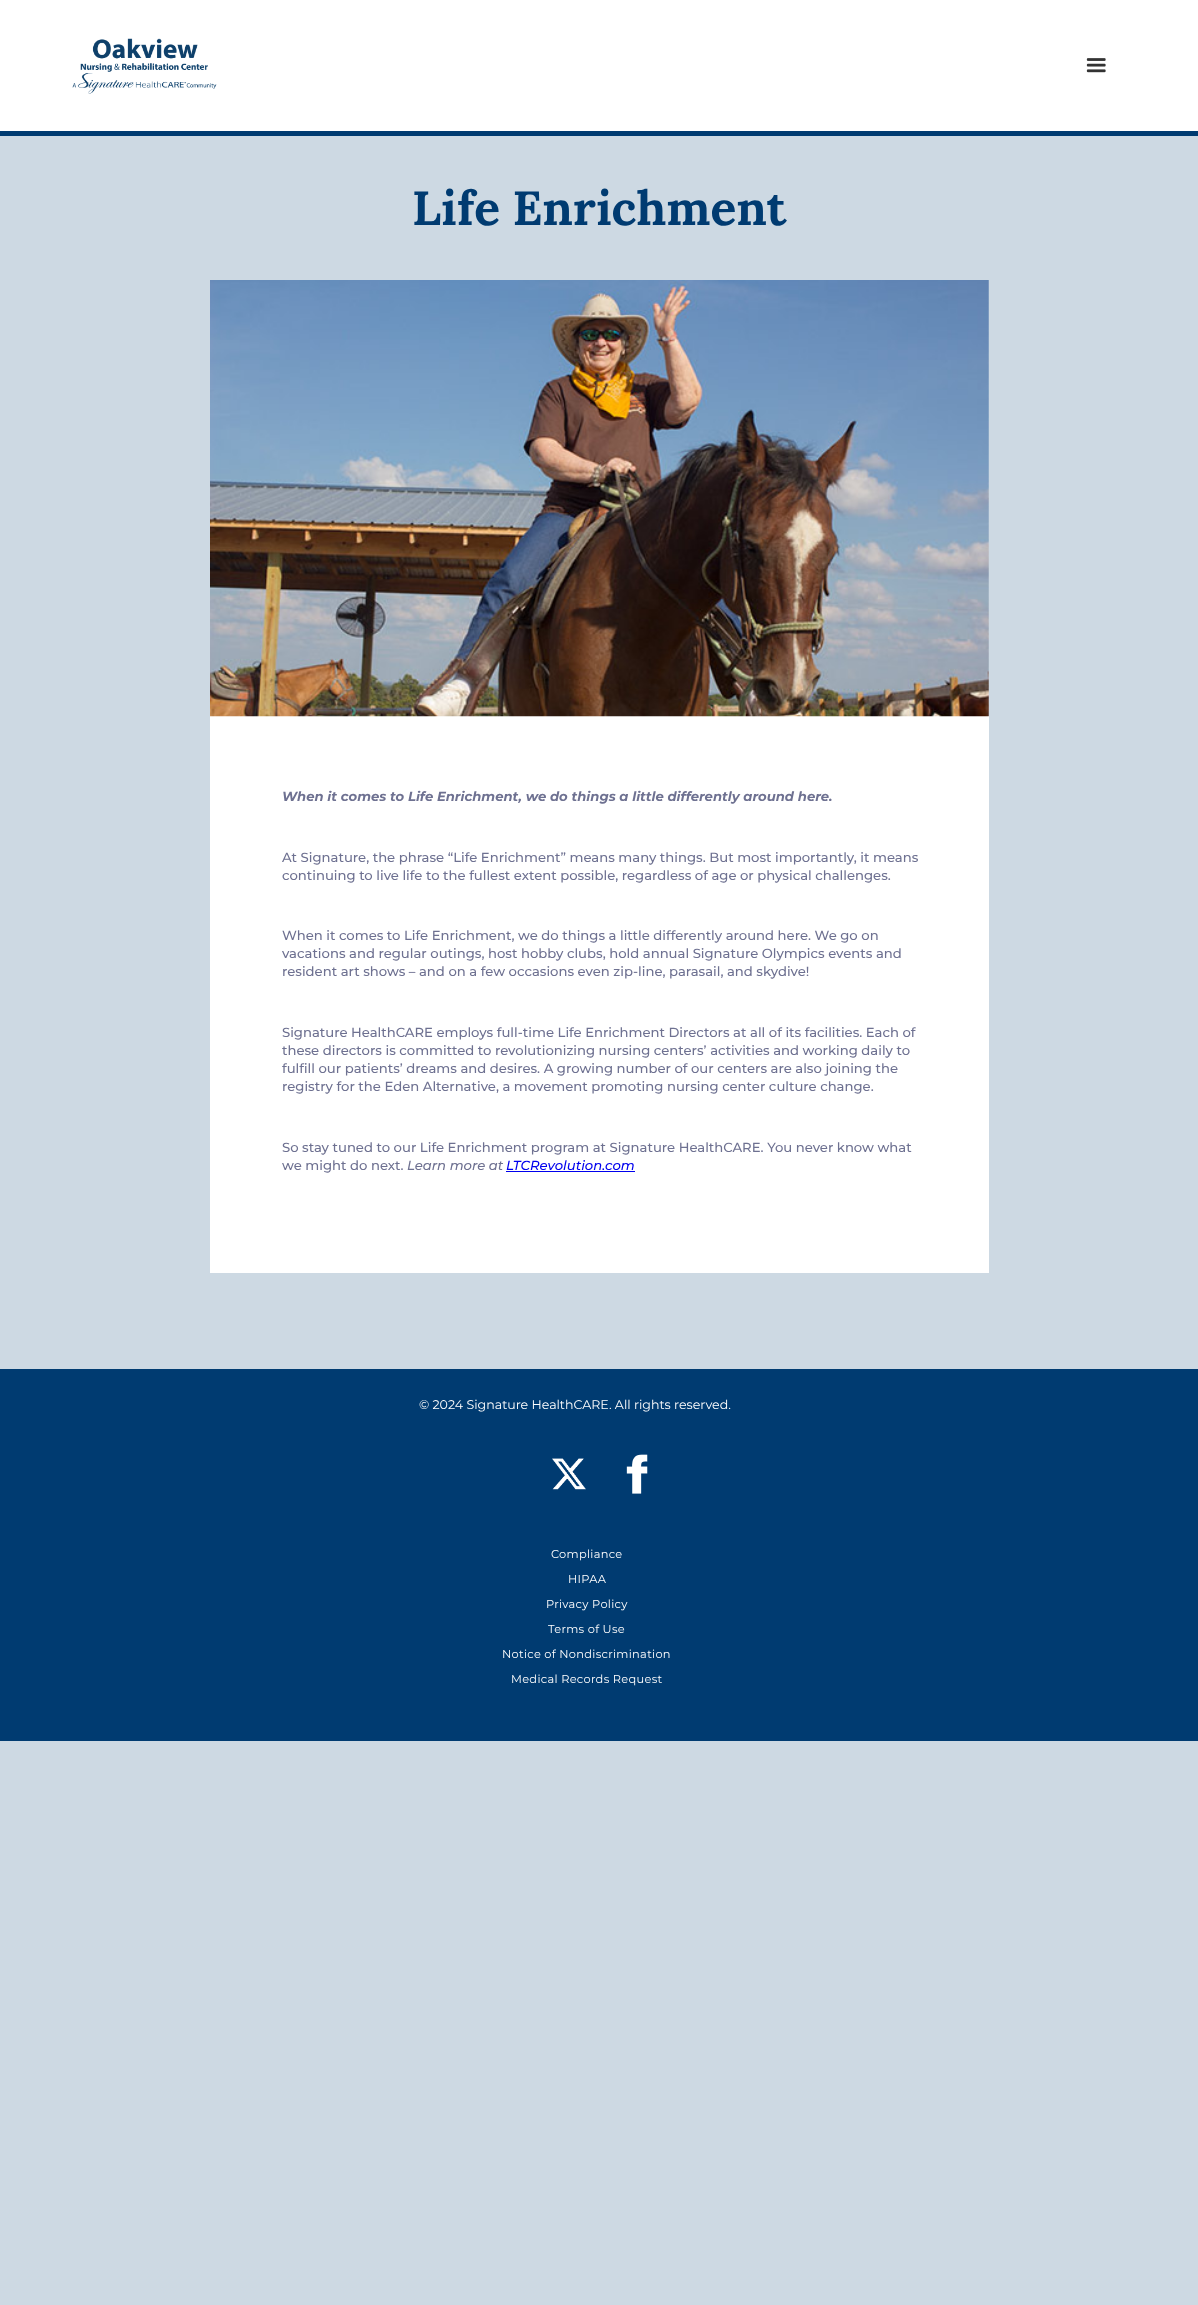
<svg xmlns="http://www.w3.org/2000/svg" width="1198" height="2305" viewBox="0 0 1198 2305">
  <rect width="100%" height="100%" fill="rgb(205,217,227)"/>
  <rect x="0" y="0" width="1198" height="131" fill="rgb(255,255,255)"/>
  <image x="72" y="38" width="145" height="56" href="pic1.png"/>
  <image x="1086" y="58" width="20" height="15" href="pic2.png"/>
  <rect x="0" y="131" width="1198" height="5" fill="rgb(0,59,113)"/>
  <text x="412" y="225" font-family="Lora" font-size="48" font-weight="bold" fill="rgb(0,59,113)">Life Enrichment</text>
  <rect x="210" y="716" width="779" height="557" fill="rgb(255,255,255)"/>
  <image x="210" y="280" width="779" height="437" href="pic3.png"/>
  <text x="282" y="801" font-family="Montserrat" font-size="13.2" font-weight="bold" font-style="italic" fill="rgb(110,113,145)">When it comes to Life Enrichment, we do things a little differently around here.</text>
  <g font-family="Montserrat" font-size="13.2" font-weight="500" fill="rgb(110,113,145)">
    <text>
      <tspan x="282" y="862">At Signature, the phrase “Life Enrichment” means many things. But most importantly, it means</tspan>
      <tspan x="282" y="880">continuing to live life to the fullest extent possible, regardless of age or physical challenges.</tspan>
    </text>
    <text>
      <tspan x="282" y="940">When it comes to Life Enrichment, we do things a little differently around here. We go on</tspan>
      <tspan x="282" y="958">vacations and regular outings, host hobby clubs, hold annual Signature Olympics events and</tspan>
      <tspan x="282" y="976">resident art shows – and on a few occasions even zip-line, parasail, and skydive!</tspan>
    </text>
    <text>
      <tspan x="282" y="1037">Signature HealthCARE employs full-time Life Enrichment Directors at all of its facilities. Each of</tspan>
      <tspan x="282" y="1055">these directors is committed to revolutionizing nursing centers’ activities and working daily to</tspan>
      <tspan x="282" y="1073">fulfill our patients’ dreams and desires. A growing number of our centers are also joining the</tspan>
      <tspan x="282" y="1091">registry for the Eden Alternative, a movement promoting nursing center culture change.</tspan>
    </text>
    <text>
      <tspan x="282" y="1152">So stay tuned to our Life Enrichment program at Signature HealthCARE. You never know what</tspan>
      <tspan x="282" y="1170">we might do next.</tspan>
    </text>
  </g>
  <text x="407" y="1170" font-family="Montserrat" font-size="13.2" font-weight="500" font-style="italic" fill="rgb(110,113,145)">Learn more at</text>
  <text x="506" y="1170" font-family="Montserrat" font-size="13.2" font-weight="500" font-style="italic" fill="rgb(0,0,238)">LTCRevolution.com</text>
  <rect x="506" y="1171" width="129" height="1" fill="rgb(0,0,238)"/>
  <rect x="0" y="1369" width="1198" height="372" fill="rgb(0,59,113)"/>
  <text x="419" y="1409" font-family="Montserrat" font-size="12.6" fill="rgb(255,255,255)">© 2024 Signature HealthCARE. All rights reserved.</text>
  <image x="552" y="1458" width="34" height="32" href="pic4.png"/>
  <image x="626" y="1454" width="22" height="40" href="pic5.png"/>
  <g font-family="Montserrat" font-size="11.4" letter-spacing="0.3" fill="rgb(255,255,255)">
    <text x="551" y="1558">Compliance</text>
    <text x="568" y="1583">HIPAA</text>
    <text x="546" y="1608">Privacy Policy</text>
    <text x="548" y="1633">Terms of Use</text>
    <text x="502" y="1658">Notice of Nondiscrimination</text>
    <text x="511" y="1683">Medical Records Request</text>
  </g>
</svg>
